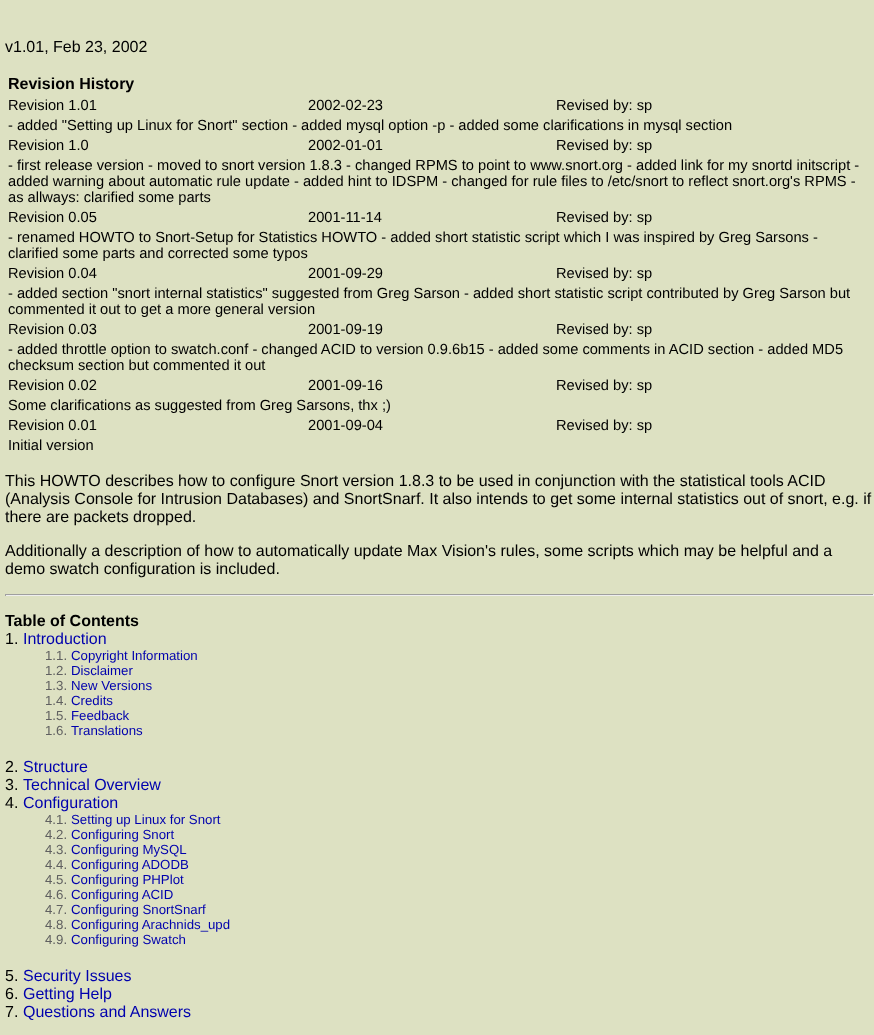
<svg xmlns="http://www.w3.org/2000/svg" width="874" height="1035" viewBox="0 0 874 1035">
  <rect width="100%" height="100%" fill="rgb(221,225,194)"/>
  <text x="5" y="52" font-family="Liberation Sans" font-size="16" fill="rgb(0,0,0)">v1.01, Feb 23, 2002</text>
  <text x="8" y="89" font-family="Liberation Sans" font-size="16" font-weight="bold" fill="rgb(0,0,0)">Revision History</text>
  <g font-family="Liberation Sans" font-size="14.67" fill="rgb(0,0,0)">
    <text x="8" y="110">Revision 1.01</text>
    <text x="308" y="110">2002-02-23</text>
    <text x="556" y="110">Revised by: sp</text>
    <text>
      <tspan x="8" y="130">- added "Setting up Linux for Snort" section - added mysql option -p - added some clarifications in mysql section</tspan>
      <tspan x="8" y="150">Revision 1.0</tspan>
    </text>
    <text x="308" y="150">2002-01-01</text>
    <text x="556" y="150">Revised by: sp</text>
    <text>
      <tspan x="8" y="170">- first release version - moved to snort version 1.8.3 - changed RPMS to point to www.snort.org - added link for my snortd initscript -</tspan>
      <tspan x="8" y="186">added warning about automatic rule update - added hint to IDSPM - changed for rule files to /etc/snort to reflect snort.org's RPMS -</tspan>
      <tspan x="8" y="202">as allways: clarified some parts</tspan>
      <tspan x="8" y="222">Revision 0.05</tspan>
    </text>
    <text x="308" y="222">2001-11-14</text>
    <text x="556" y="222">Revised by: sp</text>
    <text x="8" y="242">- renamed HOWTO to Snort-Setup for Statistics HOWTO - added short statistic script which I was inspired by Greg Sarsons</text>
    <text x="813" y="242">-</text>
    <text>
      <tspan x="8" y="258">clarified some parts and corrected some typos</tspan>
      <tspan x="8" y="278">Revision 0.04</tspan>
    </text>
    <text x="308" y="278">2001-09-29</text>
    <text x="556" y="278">Revised by: sp</text>
    <text>
      <tspan x="8" y="298">- added section "snort internal statistics" suggested from Greg Sarson - added short statistic script contributed by Greg Sarson but</tspan>
      <tspan x="8" y="314">commented it out to get a more general version</tspan>
      <tspan x="8" y="334">Revision 0.03</tspan>
    </text>
    <text x="308" y="334">2001-09-19</text>
    <text x="556" y="334">Revised by: sp</text>
    <text>
      <tspan x="8" y="354">- added throttle option to swatch.conf - changed ACID to version 0.9.6b15 - added some comments in ACID section - added MD5</tspan>
      <tspan x="8" y="370">checksum section but commented it out</tspan>
      <tspan x="8" y="390">Revision 0.02</tspan>
    </text>
    <text x="308" y="390">2001-09-16</text>
    <text x="556" y="390">Revised by: sp</text>
    <text>
      <tspan x="8" y="410">Some clarifications as suggested from Greg Sarsons, thx ;)</tspan>
      <tspan x="8" y="430">Revision 0.01</tspan>
    </text>
    <text x="308" y="430">2001-09-04</text>
    <text x="556" y="430">Revised by: sp</text>
    <text x="8" y="450">Initial version</text>
  </g>
  <g font-family="Liberation Sans" font-size="16" fill="rgb(0,0,0)">
    <text>
      <tspan x="5" y="486">This HOWTO describes how to configure Snort version 1.8.3 to be used in conjunction with the statistical tools ACID</tspan>
      <tspan x="5" y="504">(Analysis Console for Intrusion Databases) and SnortSnarf. It also intends to get some internal statistics out of snort, e.g. if</tspan>
      <tspan x="5" y="522">there are packets dropped.</tspan>
    </text>
    <text>
      <tspan x="5" y="556">Additionally a description of how to automatically update Max Vision's rules, some scripts which may be helpful and a</tspan>
      <tspan x="5" y="574">demo swatch configuration is included.</tspan>
    </text>
  </g>
  <rect x="5" y="594" width="869" height="1" fill="rgb(159,159,159)"/>
  <rect x="873" y="594" width="1" height="2" fill="rgb(238,238,238)"/>
  <rect x="5" y="595" width="869" height="1" fill="rgb(238,238,238)"/>
  <rect x="5" y="594" width="1" height="2" fill="rgb(159,159,159)"/>
  <text x="5" y="626" font-family="Liberation Sans" font-size="16" font-weight="bold" fill="rgb(0,0,0)">Table of Contents</text>
  <text x="5" y="644" font-family="Liberation Sans" font-size="16" fill="rgb(0,0,0)">1.</text>
  <text x="23" y="644" font-family="Liberation Sans" font-size="16" fill="rgb(0,0,173)">Introduction</text>
  <text x="45" y="660" font-family="Liberation Sans" font-size="13.25" fill="rgb(96,96,96)">1.1.</text>
  <text x="71" y="660" font-family="Liberation Sans" font-size="13.25" fill="rgb(0,0,173)">Copyright Information</text>
  <text x="45" y="675" font-family="Liberation Sans" font-size="13.25" fill="rgb(96,96,96)">1.2.</text>
  <text x="71" y="675" font-family="Liberation Sans" font-size="13.25" fill="rgb(0,0,173)">Disclaimer</text>
  <text x="45" y="690" font-family="Liberation Sans" font-size="13.25" fill="rgb(96,96,96)">1.3.</text>
  <text x="71" y="690" font-family="Liberation Sans" font-size="13.25" fill="rgb(0,0,173)">New Versions</text>
  <text x="45" y="705" font-family="Liberation Sans" font-size="13.25" fill="rgb(96,96,96)">1.4.</text>
  <text x="71" y="705" font-family="Liberation Sans" font-size="13.25" fill="rgb(0,0,173)">Credits</text>
  <text x="45" y="720" font-family="Liberation Sans" font-size="13.25" fill="rgb(96,96,96)">1.5.</text>
  <text x="71" y="720" font-family="Liberation Sans" font-size="13.25" fill="rgb(0,0,173)">Feedback</text>
  <text x="45" y="735" font-family="Liberation Sans" font-size="13.25" fill="rgb(96,96,96)">1.6.</text>
  <text x="71" y="735" font-family="Liberation Sans" font-size="13.25" fill="rgb(0,0,173)">Translations</text>
  <text x="5" y="772" font-family="Liberation Sans" font-size="16" fill="rgb(0,0,0)">2.</text>
  <text x="23" y="772" font-family="Liberation Sans" font-size="16" fill="rgb(0,0,173)">Structure</text>
  <text x="5" y="790" font-family="Liberation Sans" font-size="16" fill="rgb(0,0,0)">3.</text>
  <text x="23" y="790" font-family="Liberation Sans" font-size="16" fill="rgb(0,0,173)">Technical Overview</text>
  <text x="5" y="808" font-family="Liberation Sans" font-size="16" fill="rgb(0,0,0)">4.</text>
  <text x="23" y="808" font-family="Liberation Sans" font-size="16" fill="rgb(0,0,173)">Configuration</text>
  <text x="45" y="824" font-family="Liberation Sans" font-size="13.25" fill="rgb(96,96,96)">4.1.</text>
  <text x="71" y="824" font-family="Liberation Sans" font-size="13.25" fill="rgb(0,0,173)">Setting up Linux for Snort</text>
  <text x="45" y="839" font-family="Liberation Sans" font-size="13.25" fill="rgb(96,96,96)">4.2.</text>
  <text x="71" y="839" font-family="Liberation Sans" font-size="13.25" fill="rgb(0,0,173)">Configuring Snort</text>
  <text x="45" y="854" font-family="Liberation Sans" font-size="13.25" fill="rgb(96,96,96)">4.3.</text>
  <text x="71" y="854" font-family="Liberation Sans" font-size="13.25" fill="rgb(0,0,173)">Configuring MySQL</text>
  <text x="45" y="869" font-family="Liberation Sans" font-size="13.25" fill="rgb(96,96,96)">4.4.</text>
  <text x="71" y="869" font-family="Liberation Sans" font-size="13.25" fill="rgb(0,0,173)">Configuring ADODB</text>
  <text x="45" y="884" font-family="Liberation Sans" font-size="13.25" fill="rgb(96,96,96)">4.5.</text>
  <text x="71" y="884" font-family="Liberation Sans" font-size="13.25" fill="rgb(0,0,173)">Configuring PHPlot</text>
  <text x="45" y="899" font-family="Liberation Sans" font-size="13.25" fill="rgb(96,96,96)">4.6.</text>
  <text x="71" y="899" font-family="Liberation Sans" font-size="13.25" fill="rgb(0,0,173)">Configuring ACID</text>
  <text x="45" y="914" font-family="Liberation Sans" font-size="13.25" fill="rgb(96,96,96)">4.7.</text>
  <text x="71" y="914" font-family="Liberation Sans" font-size="13.25" fill="rgb(0,0,173)">Configuring SnortSnarf</text>
  <text x="45" y="929" font-family="Liberation Sans" font-size="13.25" fill="rgb(96,96,96)">4.8.</text>
  <text x="71" y="929" font-family="Liberation Sans" font-size="13.25" fill="rgb(0,0,173)">Configuring Arachnids_upd</text>
  <text x="45" y="944" font-family="Liberation Sans" font-size="13.25" fill="rgb(96,96,96)">4.9.</text>
  <text x="71" y="944" font-family="Liberation Sans" font-size="13.25" fill="rgb(0,0,173)">Configuring Swatch</text>
  <text x="5" y="981" font-family="Liberation Sans" font-size="16" fill="rgb(0,0,0)">5.</text>
  <text x="23" y="981" font-family="Liberation Sans" font-size="16" fill="rgb(0,0,173)">Security Issues</text>
  <text x="5" y="999" font-family="Liberation Sans" font-size="16" fill="rgb(0,0,0)">6.</text>
  <text x="23" y="999" font-family="Liberation Sans" font-size="16" fill="rgb(0,0,173)">Getting Help</text>
  <text x="5" y="1017" font-family="Liberation Sans" font-size="16" fill="rgb(0,0,0)">7.</text>
  <text x="23" y="1017" font-family="Liberation Sans" font-size="16" fill="rgb(0,0,173)">Questions and Answers</text>
</svg>
